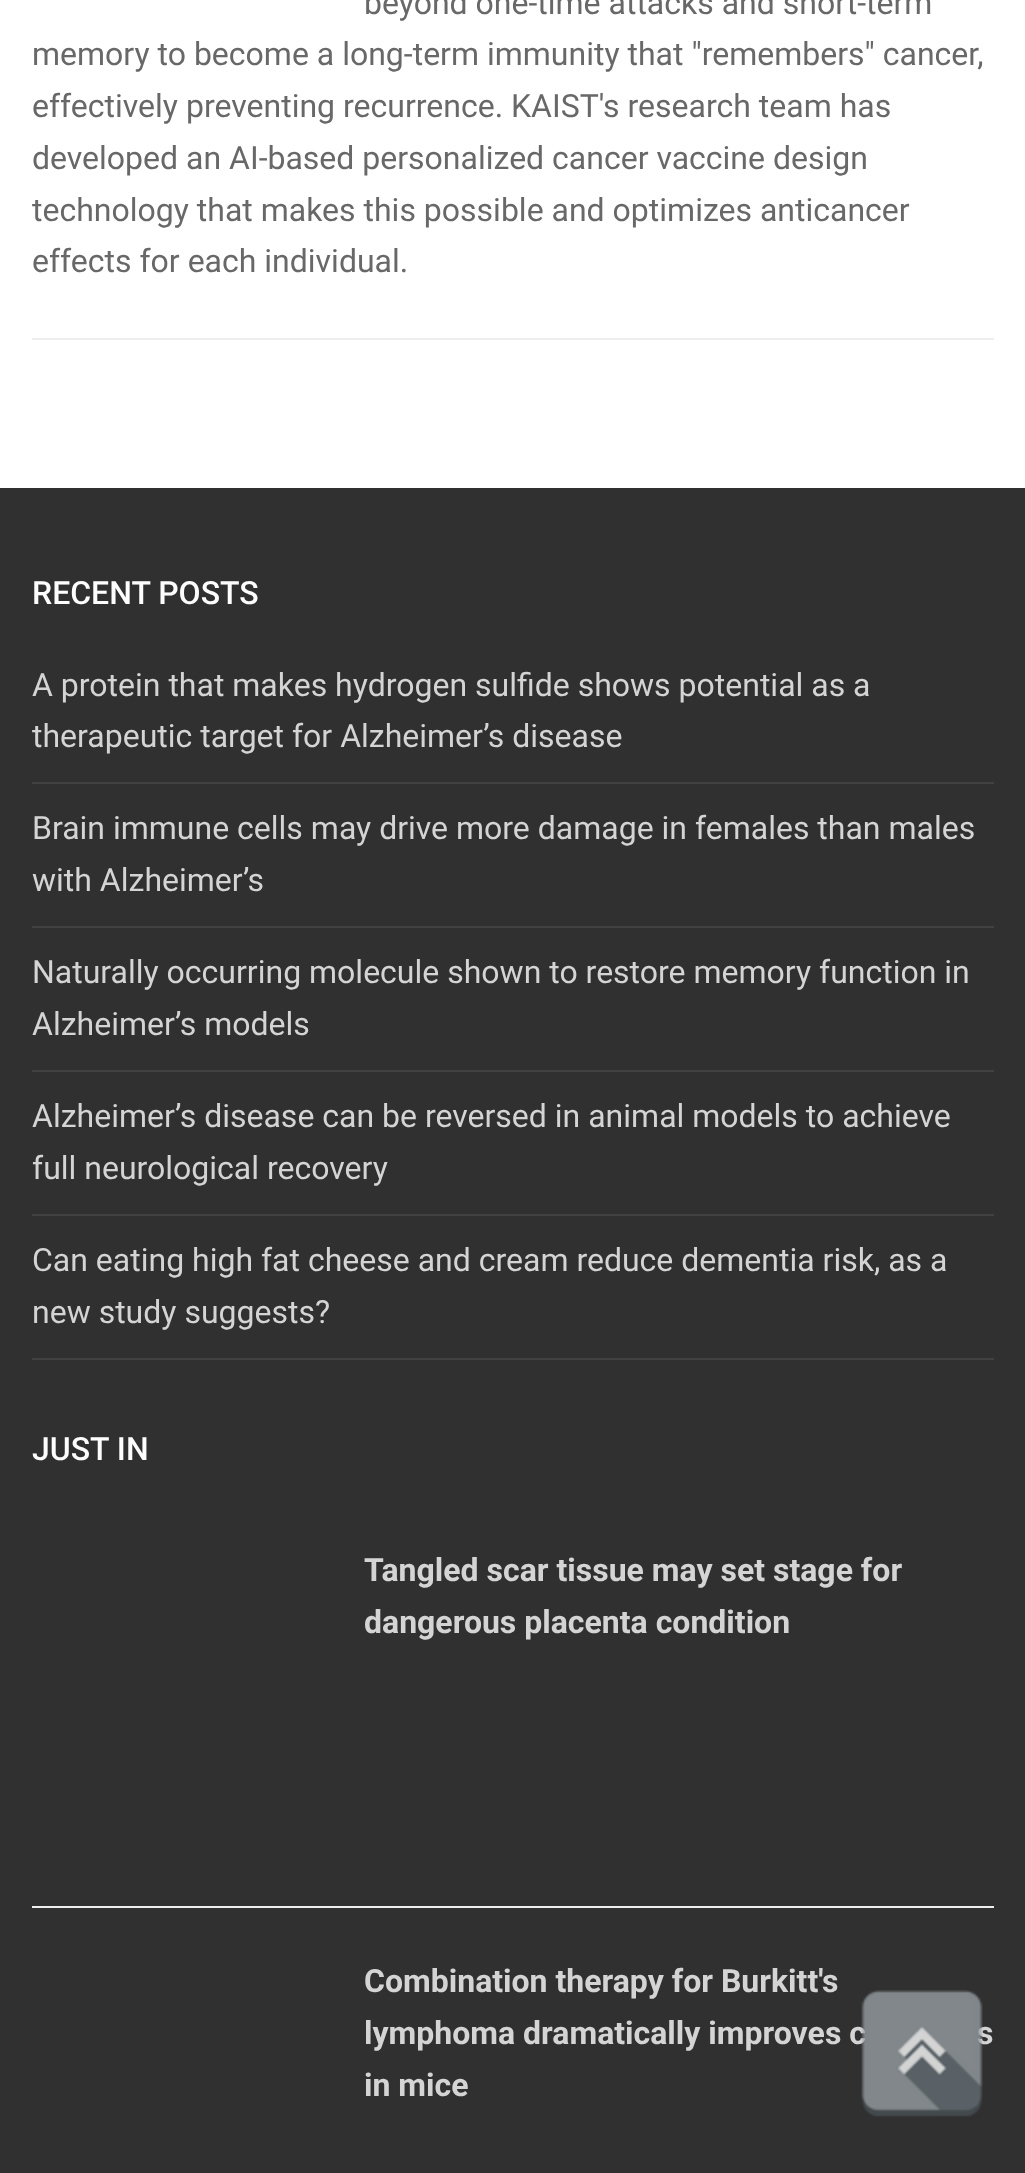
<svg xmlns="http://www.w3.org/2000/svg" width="1025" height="2173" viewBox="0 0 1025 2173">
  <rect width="100%" height="100%" fill="rgb(255,255,255)"/>
  <rect x="32" y="338" width="962" height="2" fill="rgb(238,238,238)"/>
  <g font-family="Roboto" font-size="32" fill="rgb(104,104,104)">
    <text x="364" y="14">beyond one-time attacks and short-term</text>
    <text>
      <tspan x="32" y="65">memory to become a long-term immunity that "remembers" cancer,</tspan>
      <tspan x="32" y="117">effectively preventing recurrence. KAIST's research team has</tspan>
      <tspan x="32" y="169">developed an AI-based personalized cancer vaccine design</tspan>
      <tspan x="32" y="221">technology that makes this possible and optimizes anticancer</tspan>
      <tspan x="32" y="272">effects for each individual.</tspan>
    </text>
  </g>
  <rect x="0" y="488" width="1025" height="1685" fill="rgb(48,48,48)"/>
  <text x="32" y="604" font-family="Roboto" font-size="32" font-weight="500" fill="rgb(253,253,253)">RECENT POSTS</text>
  <rect x="32" y="782" width="962" height="2" fill="rgb(65,65,65)"/>
  <g font-family="Roboto" font-size="32" fill="rgb(212,212,212)">
    <text>
      <tspan x="32" y="696">A protein that makes hydrogen sulfide shows potential as a</tspan>
      <tspan x="32" y="747">therapeutic target for Alzheimer’s disease</tspan>
    </text>
  </g>
  <rect x="32" y="926" width="962" height="2" fill="rgb(65,65,65)"/>
  <g font-family="Roboto" font-size="32" fill="rgb(212,212,212)">
    <text>
      <tspan x="32" y="839">Brain immune cells may drive more damage in females than males</tspan>
      <tspan x="32" y="891">with Alzheimer’s</tspan>
    </text>
  </g>
  <rect x="32" y="1070" width="962" height="2" fill="rgb(65,65,65)"/>
  <g font-family="Roboto" font-size="32" fill="rgb(212,212,212)">
    <text>
      <tspan x="32" y="983">Naturally occurring molecule shown to restore memory function in</tspan>
      <tspan x="32" y="1035">Alzheimer’s models</tspan>
    </text>
  </g>
  <rect x="32" y="1214" width="962" height="2" fill="rgb(65,65,65)"/>
  <g font-family="Roboto" font-size="32" fill="rgb(212,212,212)">
    <text>
      <tspan x="32" y="1127">Alzheimer’s disease can be reversed in animal models to achieve</tspan>
      <tspan x="32" y="1179">full neurological recovery</tspan>
    </text>
  </g>
  <rect x="32" y="1358" width="962" height="2" fill="rgb(65,65,65)"/>
  <g font-family="Roboto" font-size="32" fill="rgb(212,212,212)">
    <text>
      <tspan x="32" y="1271">Can eating high fat cheese and cream reduce dementia risk, as a</tspan>
      <tspan x="32" y="1323">new study suggests?</tspan>
    </text>
  </g>
  <text x="32" y="1460" font-family="Roboto" font-size="32" font-weight="500" fill="rgb(253,253,253)">JUST IN</text>
  <rect x="32" y="1906" width="962" height="2" fill="rgb(238,238,238)"/>
  <g font-family="Roboto" font-size="32" font-weight="bold" fill="rgb(212,212,212)">
    <text>
      <tspan x="364" y="1581">Tangled scar tissue may set stage for</tspan>
      <tspan x="364" y="1633">dangerous placenta condition</tspan>
    </text>
    <text>
      <tspan x="364" y="1992">Combination therapy for Burkitt's</tspan>
      <tspan x="364" y="2044">lymphoma dramatically improves c</tspan>
    </text>
    <text x="977" y="2044">s</text>
    <text x="364" y="2096">in mice</text>
  </g>
  <image x="861" y="1990" width="122" height="127" href="pic1.png"/>
</svg>
